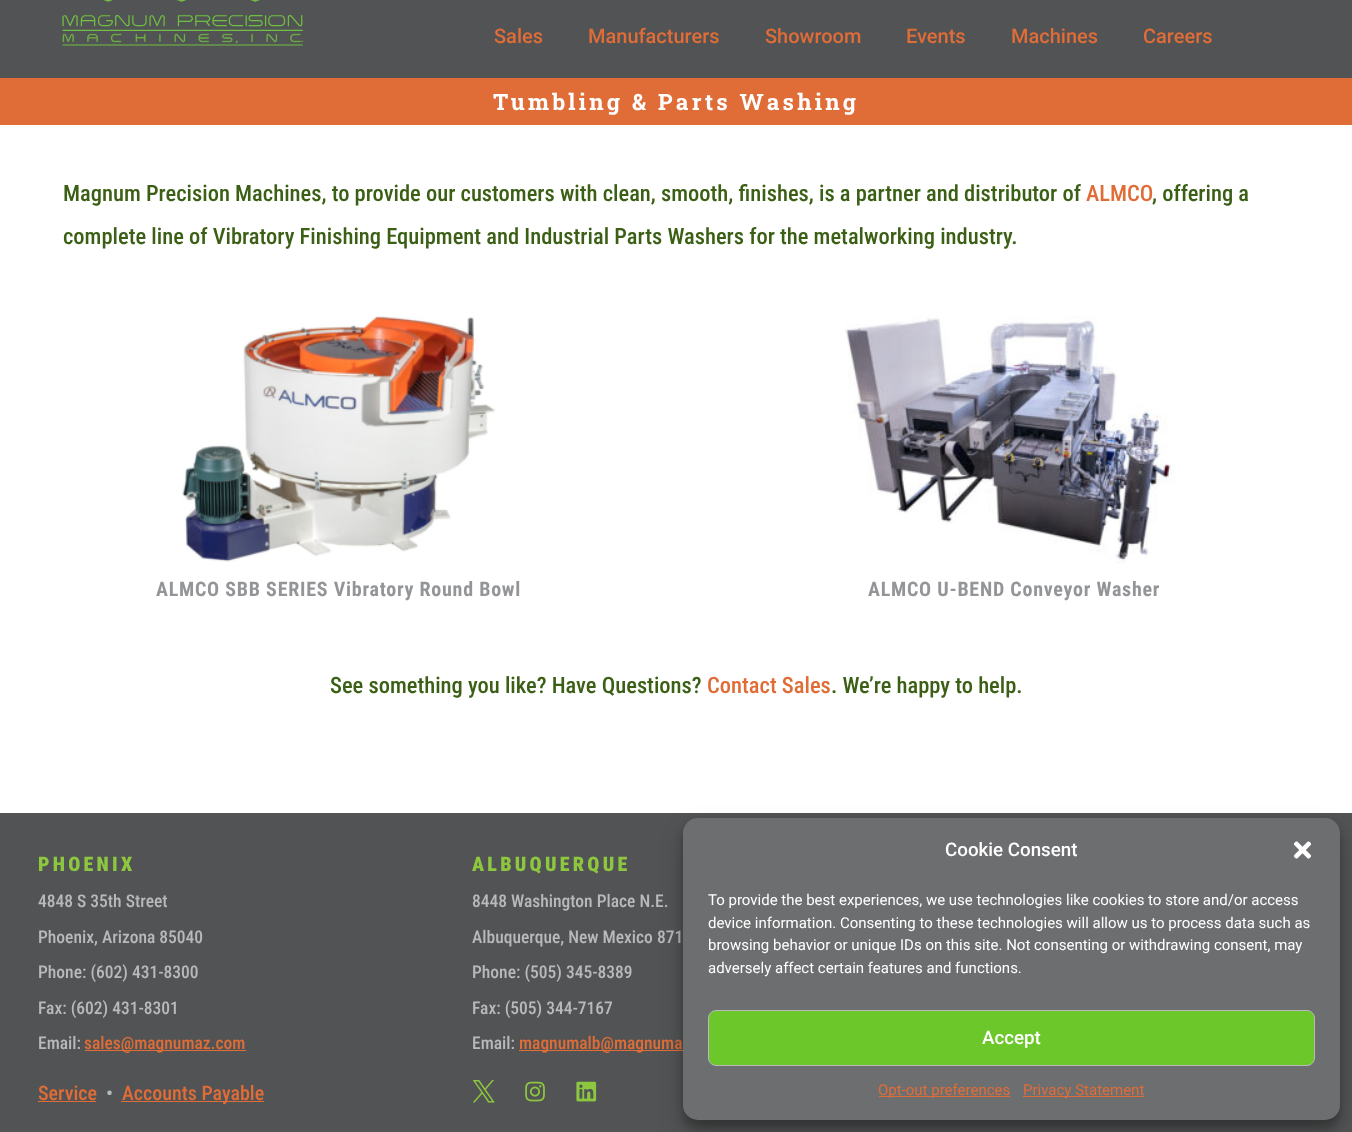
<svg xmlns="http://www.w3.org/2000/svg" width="1352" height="1132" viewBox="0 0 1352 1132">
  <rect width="100%" height="100%" fill="rgb(255,255,255)"/>
  <rect x="0" y="0" width="1352" height="78" fill="rgb(82,83,84)"/>
  <image x="62" y="0" width="242" height="46" href="pic1.png"/>
  <g font-family="Roboto" font-size="20" font-weight="500" fill="rgb(224,109,55)">
    <text x="494" y="43">Sales</text>
    <text x="588" y="43">Manufacturers</text>
    <text x="765" y="43">Showroom</text>
    <text x="906" y="43">Events</text>
    <text x="1011" y="43">Machines</text>
    <text x="1143" y="43">Careers</text>
  </g>
  <rect x="0" y="78" width="1352" height="47" fill="rgb(224,109,55)"/>
  <text x="493" y="110" font-family="Roboto Slab" font-size="22.5" font-weight="bold" letter-spacing="3.25" fill="rgb(255,255,255)">Tumbling &amp; Parts Washing</text>
  <text x="63" y="201" font-family="Roboto Condensed" font-size="22.5" font-weight="500" fill="rgb(59,96,21)">Magnum Precision Machines, to provide our customers with clean, smooth, finishes, is a partner and distributor of</text>
  <text x="1086" y="201" font-family="Roboto Condensed" font-size="22.5" font-weight="500" fill="rgb(224,109,55)">ALMCO</text>
  <g font-family="Roboto Condensed" font-size="22.5" font-weight="500" fill="rgb(59,96,21)">
    <text x="1152" y="201">, offering a</text>
    <text x="63" y="244">complete line of Vibratory Finishing Equipment and Industrial Parts Washers for the metalworking industry.</text>
  </g>
  <image x="182" y="316" width="314" height="246" href="pic2.png"/>
  <text x="156" y="596" font-family="Roboto Condensed" font-size="20" font-weight="bold" letter-spacing="0.75" fill="rgb(147,149,152)">ALMCO SBB SERIES Vibratory Round Bowl</text>
  <image x="845" y="315" width="331" height="249" href="pic3.png"/>
  <text x="868" y="596" font-family="Roboto Condensed" font-size="20" font-weight="bold" letter-spacing="0.75" fill="rgb(147,149,152)">ALMCO U-BEND Conveyor Washer</text>
  <text x="330" y="693" font-family="Roboto Condensed" font-size="22.5" font-weight="500" fill="rgb(59,96,21)">See something you like? Have Questions?</text>
  <text x="707" y="693" font-family="Roboto Condensed" font-size="22.5" font-weight="500" fill="rgb(224,109,55)">Contact Sales</text>
  <text x="831" y="693" font-family="Roboto Condensed" font-size="22.5" font-weight="500" fill="rgb(59,96,21)">. We’re happy to help.</text>
  <rect x="0" y="813" width="1352" height="319" fill="rgb(82,83,84)"/>
  <text x="38" y="871" font-family="Roboto Condensed" font-size="20" font-weight="900" letter-spacing="3.25" fill="rgb(141,199,63)">PHOENIX</text>
  <g font-family="Roboto Condensed" font-size="17.5" font-weight="500" fill="rgb(184,185,186)">
    <text x="38" y="907">4848 S 35th Street</text>
    <text x="38" y="943">Phoenix, Arizona 85040</text>
    <text x="38" y="978">Phone: (602) 431-8300</text>
    <text x="38" y="1014">Fax: (602) 431-8301</text>
    <text x="38" y="1049">Email:</text>
  </g>
  <rect x="85" y="1050" width="161" height="1" fill="rgb(224,109,55)"/>
  <text x="84" y="1049" font-family="Roboto Condensed" font-size="17.5" font-weight="500" fill="rgb(224,109,55)">sales@magnumaz.com</text>
  <text x="38" y="1100" font-family="Roboto Condensed" font-size="20" font-weight="500" fill="rgb(224,109,55)">Service</text>
  <rect x="38" y="1101" width="58" height="1" fill="rgb(224,109,55)"/>
  <text x="106" y="1100" font-family="Roboto Condensed" font-size="20" font-weight="500" fill="rgb(184,185,186)">•</text>
  <rect x="121" y="1101" width="143" height="1" fill="rgb(224,109,55)"/>
  <text x="122" y="1100" font-family="Roboto Condensed" font-size="20" font-weight="500" fill="rgb(224,109,55)">Accounts Payable</text>
  <text x="472" y="871" font-family="Roboto Condensed" font-size="20" font-weight="900" letter-spacing="3.25" fill="rgb(141,199,63)">ALBUQUERQUE</text>
  <g font-family="Roboto Condensed" font-size="17.5" font-weight="500" fill="rgb(184,185,186)">
    <text x="472" y="907">8448 Washington Place N.E.</text>
    <text x="472" y="943">Albuquerque, New Mexico 871</text>
    <text x="472" y="978">Phone: (505) 345-8389</text>
    <text x="472" y="1014">Fax: (505) 344-7167</text>
    <text x="472" y="1049">Email:</text>
  </g>
  <rect x="519" y="1050" width="164" height="1" fill="rgb(224,109,55)"/>
  <text x="519" y="1049" font-family="Roboto Condensed" font-size="17.5" font-weight="500" fill="rgb(224,109,55)">magnumalb@magnuma</text>
  <image x="473" y="1080" width="22" height="23" href="pic4.png"/>
  <image x="525" y="1081" width="20" height="21" href="pic5.png"/>
  <image x="576" y="1081" width="21" height="21" href="pic6.png"/>
  <rect x="683" y="825" width="657" height="303" rx="15" fill="rgba(0,0,0,0.23)" filter="blur(4px)"/>
  <rect x="683" y="830" width="657" height="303" rx="15" fill="rgba(0,0,0,0.19)" filter="blur(12.5px)"/>
  <rect x="683" y="818" width="657" height="302" rx="15" fill="rgb(109,110,112)"/>
  <text x="945" y="856" font-family="Roboto" font-size="18.75" font-weight="500" fill="rgb(255,255,255)">Cookie Consent</text>
  <image x="1293" y="841" width="18" height="18" href="pic7.png"/>
  <g font-family="Roboto" font-size="15" fill="rgb(255,255,255)">
    <text>
      <tspan x="708" y="905">To provide the best experiences, we use technologies like cookies to store and/or access</tspan>
      <tspan x="708" y="928">device information. Consenting to these technologies will allow us to process data such as</tspan>
      <tspan x="708" y="950">browsing behavior or unique IDs on this site. Not consenting or withdrawing consent, may</tspan>
      <tspan x="708" y="973">adversely affect certain features and functions.</tspan>
    </text>
  </g>
  <rect x="708.5" y="1010.5" width="606" height="55" rx="7.5" fill="rgb(108,199,43)" stroke="rgb(184,185,186)"/>
  <text x="982" y="1044" font-family="Roboto" font-size="18.75" font-weight="500" fill="rgb(255,255,255)">Accept</text>
  <rect x="879" y="1096" width="131" height="1" fill="rgb(224,109,55)"/>
  <text x="878" y="1095" font-family="Roboto" font-size="15" fill="rgb(224,109,55)">Opt-out preferences</text>
  <rect x="1023" y="1096" width="121" height="1" fill="rgb(224,109,55)"/>
  <text x="1023" y="1095" font-family="Roboto" font-size="15" fill="rgb(224,109,55)">Privacy Statement</text>
</svg>
